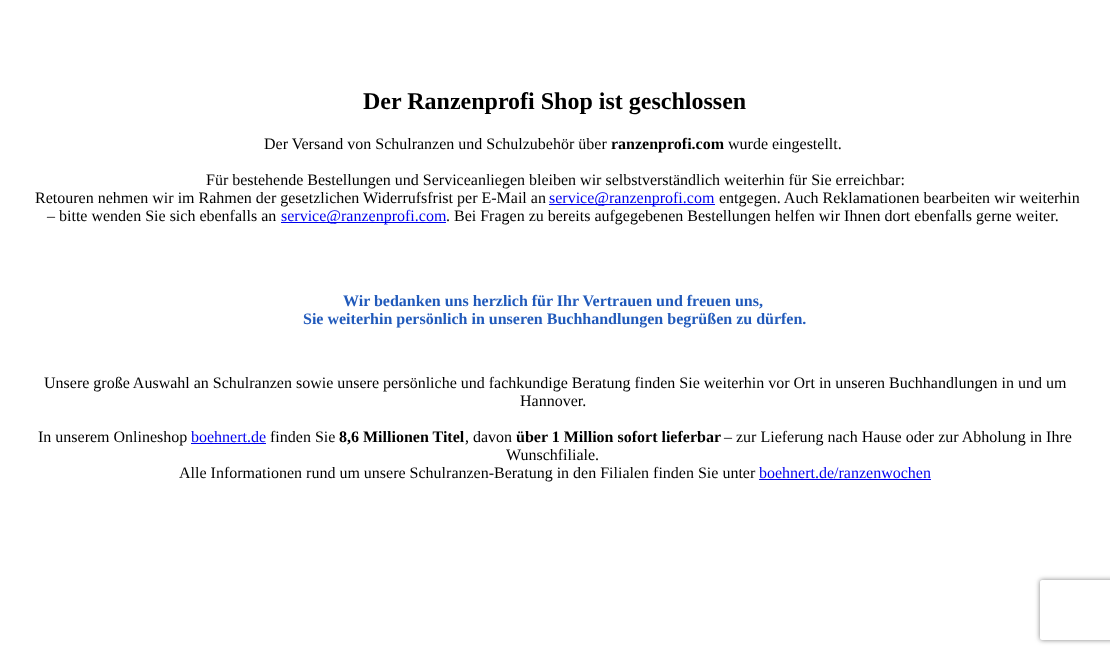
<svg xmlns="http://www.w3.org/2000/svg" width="1110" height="654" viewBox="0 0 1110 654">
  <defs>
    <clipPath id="clip1"><path d="M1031 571H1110V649H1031ZM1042 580H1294C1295 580 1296 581 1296 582V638C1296 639 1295 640 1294 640H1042C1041 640 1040 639 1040 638V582C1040 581 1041 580 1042 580Z" clip-rule="evenodd"/></clipPath>
  </defs>
  <rect width="100%" height="100%" fill="rgb(255,255,255)"/>
  <text x="363" y="109" font-family="Liberation Serif" font-size="24" font-weight="bold" fill="rgb(0,0,0)">Der Ranzenprofi Shop ist geschlossen</text>
  <text x="264" y="149" font-family="Liberation Serif" font-size="16" fill="rgb(0,0,0)">Der Versand von Schulranzen und Schulzubehör über</text>
  <text x="611" y="149" font-family="Liberation Serif" font-size="16" font-weight="bold" fill="rgb(0,0,0)">ranzenprofi.com</text>
  <g font-family="Liberation Serif" font-size="16" fill="rgb(0,0,0)">
    <text x="728" y="149">wurde eingestellt.</text>
    <text x="206" y="185">Für bestehende Bestellungen und Serviceanliegen bleiben wir selbstverständlich weiterhin für Sie erreichbar:</text>
    <text x="35" y="203">Retouren nehmen wir im Rahmen der gesetzlichen Widerrufsfrist per E-Mail an</text>
  </g>
  <rect x="549" y="204" width="166" height="1" fill="rgb(0,0,238)"/>
  <text x="549" y="203" font-family="Liberation Serif" font-size="16" fill="rgb(0,0,238)">service@ranzenprofi.com</text>
  <g font-family="Liberation Serif" font-size="16" fill="rgb(0,0,0)">
    <text x="719" y="203">entgegen. Auch Reklamationen bearbeiten wir weiterhin</text>
    <text x="47" y="221">– bitte wenden Sie sich ebenfalls an</text>
  </g>
  <rect x="281" y="222" width="165" height="1" fill="rgb(0,0,238)"/>
  <text x="281" y="221" font-family="Liberation Serif" font-size="16" fill="rgb(0,0,238)">service@ranzenprofi.com</text>
  <text x="446" y="221" font-family="Liberation Serif" font-size="16" fill="rgb(0,0,0)">. Bei Fragen zu bereits aufgegebenen Bestellungen helfen wir Ihnen dort ebenfalls gerne weiter.</text>
  <g font-family="Liberation Serif" font-size="16" font-weight="bold" fill="rgb(33,90,187)">
    <text x="343" y="306">Wir bedanken uns herzlich für Ihr Vertrauen und freuen uns,</text>
    <text x="303" y="324">Sie weiterhin persönlich in unseren Buchhandlungen begrüßen zu dürfen.</text>
  </g>
  <g font-family="Liberation Serif" font-size="16" fill="rgb(0,0,0)">
    <text x="44" y="388">Unsere große Auswahl an Schulranzen sowie unsere persönliche und fachkundige Beratung finden Sie weiterhin vor Ort in unseren Buchhandlungen in und um</text>
    <text x="520" y="406">Hannover.</text>
    <text x="38" y="442">In unserem Onlineshop</text>
  </g>
  <text x="191" y="442" font-family="Liberation Serif" font-size="16" fill="rgb(0,0,238)">boehnert.de</text>
  <rect x="191" y="443" width="75" height="1" fill="rgb(0,0,238)"/>
  <text x="270" y="442" font-family="Liberation Serif" font-size="16" fill="rgb(0,0,0)">finden Sie</text>
  <text x="339" y="442" font-family="Liberation Serif" font-size="16" font-weight="bold" fill="rgb(0,0,0)">8,6 Millionen Titel</text>
  <text x="465" y="442" font-family="Liberation Serif" font-size="16" fill="rgb(0,0,0)">, davon</text>
  <text x="516" y="442" font-family="Liberation Serif" font-size="16" font-weight="bold" fill="rgb(0,0,0)">über 1 Million sofort lieferbar</text>
  <g font-family="Liberation Serif" font-size="16" fill="rgb(0,0,0)">
    <text x="724" y="442">– zur Lieferung nach Hause oder zur Abholung in Ihre</text>
    <text x="506" y="460">Wunschfiliale.</text>
    <text x="179" y="478">Alle Informationen rund um unsere Schulranzen-Beratung in den Filialen finden Sie unter</text>
  </g>
  <text x="759" y="478" font-family="Liberation Serif" font-size="16" fill="rgb(0,0,238)">boehnert.de/ranzenwochen</text>
  <rect x="759" y="479" width="172" height="1" fill="rgb(0,0,238)"/>
  <g clip-path="url(#clip1)">
    <rect x="1040" y="580" width="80" height="60" rx="2" fill="rgb(128,128,128)" filter="blur(2.5px)"/>
  </g>
</svg>
